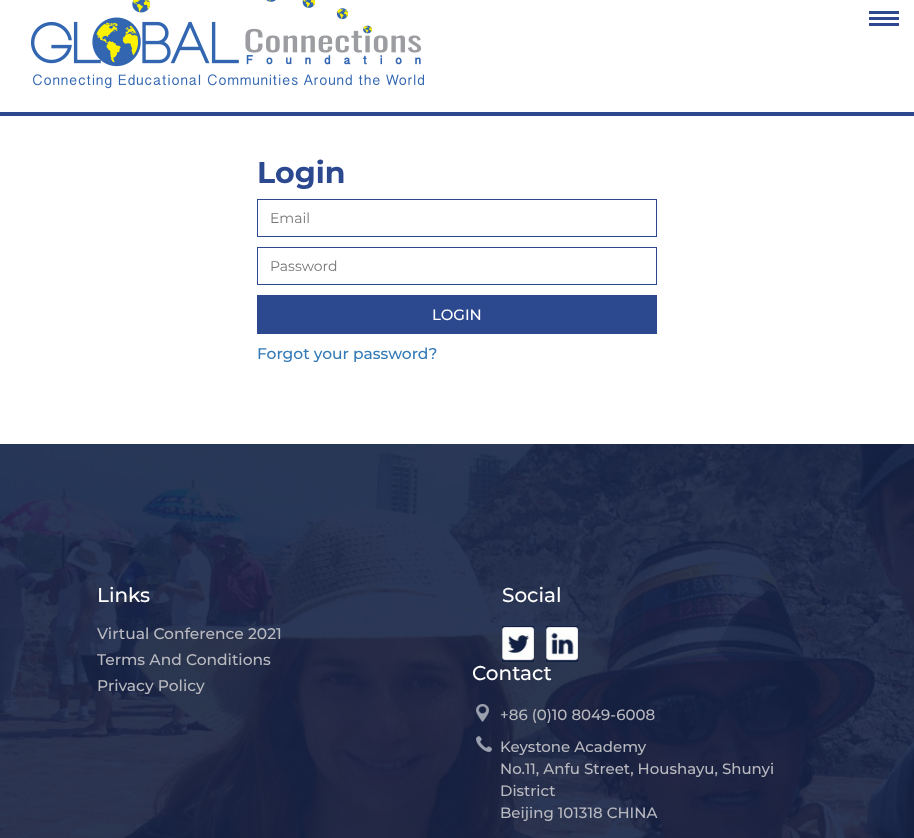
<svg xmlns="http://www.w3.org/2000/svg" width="914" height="838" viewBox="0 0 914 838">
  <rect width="100%" height="100%" fill="rgb(255,255,255)"/>
  <rect x="0" y="112" width="914" height="4" fill="rgb(44,73,144)"/>
  <image x="31" y="0" width="393" height="89" href="pic1.png"/>
  <rect x="869" y="11" width="30" height="3" fill="rgb(44,73,144)"/>
  <rect x="869" y="17" width="30" height="3" fill="rgb(44,73,144)"/>
  <rect x="869" y="23" width="30" height="3" fill="rgb(44,73,144)"/>
  <text x="257" y="183" font-family="Montserrat" font-size="30" font-weight="bold" fill="rgb(44,73,144)">Login</text>
  <rect x="257.5" y="199.5" width="399" height="37" fill="none" stroke="rgb(44,73,144)"/>
  <text x="270" y="223" font-family="Montserrat" font-size="14" fill="rgb(117,117,117)">Email</text>
  <rect x="257.5" y="247.5" width="399" height="37" fill="none" stroke="rgb(44,73,144)"/>
  <text x="270" y="271" font-family="Montserrat" font-size="14" fill="rgb(117,117,117)">Password</text>
  <rect x="257" y="295" width="400" height="39" fill="rgb(44,73,144)"/>
  <text x="432" y="320" font-family="Montserrat" font-size="15" font-weight="500" fill="rgb(255,255,255)">LOGIN</text>
  <text x="257" y="359" font-family="Montserrat" font-size="15.5" font-weight="500" fill="rgb(51,122,183)">Forgot your password?</text>
  <image x="0" y="444" width="914" height="394" href="pic2.png"/>
  <text x="97" y="602" font-family="Montserrat" font-size="20" font-weight="500" fill="rgb(255,255,255)">Links</text>
  <g font-family="Montserrat" font-size="15.5" font-weight="500" fill="rgb(185,186,192)">
    <text>
      <tspan x="97" y="639">Virtual Conference 2021</tspan>
      <tspan x="97" y="665">Terms And Conditions</tspan>
      <tspan x="97" y="691">Privacy Policy</tspan>
    </text>
  </g>
  <text x="502" y="602" font-family="Montserrat" font-size="20" font-weight="500" fill="rgb(255,255,255)">Social</text>
  <image x="502" y="626" width="32" height="36" href="pic3.png"/>
  <image x="546" y="626" width="32" height="36" href="pic4.png"/>
  <text x="472" y="680" font-family="Montserrat" font-size="20" font-weight="500" fill="rgb(255,255,255)">Contact</text>
  <image x="476" y="704" width="13" height="18" href="pic5.png"/>
  <text x="500" y="720" font-family="Montserrat" font-size="15" font-weight="500" fill="rgb(185,186,192)">+86 (0)10 8049-6008</text>
  <image x="476" y="736" width="16" height="16" href="pic6.png"/>
  <g font-family="Montserrat" font-size="15" font-weight="500" fill="rgb(185,186,192)">
    <text>
      <tspan x="500" y="752">Keystone Academy</tspan>
      <tspan x="500" y="774">No.11, Anfu Street, Houshayu, Shunyi</tspan>
      <tspan x="500" y="796">District</tspan>
      <tspan x="500" y="818">Beijing 101318 CHINA</tspan>
    </text>
  </g>
</svg>
